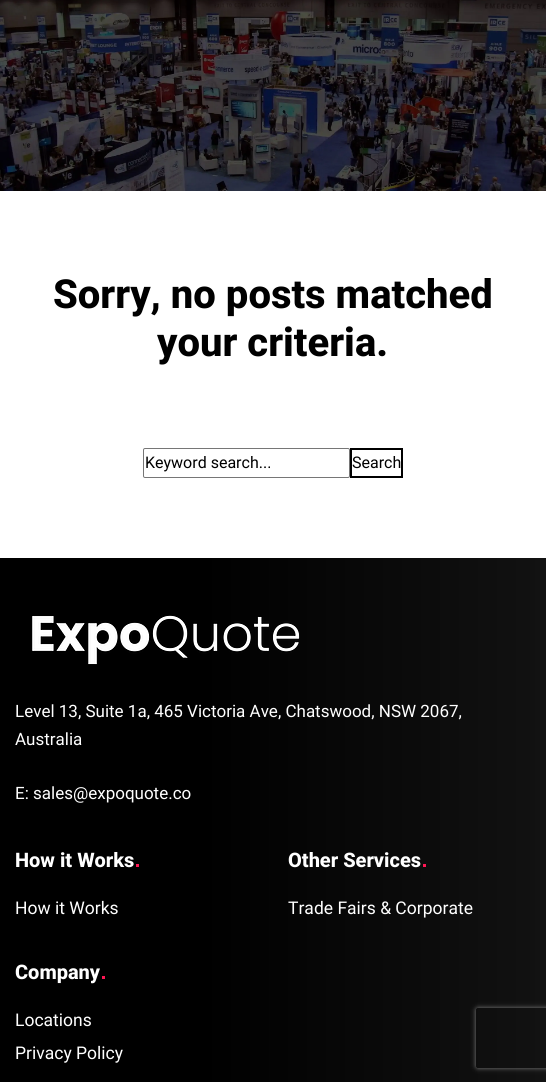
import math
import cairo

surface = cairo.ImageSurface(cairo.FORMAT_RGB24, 546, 1082)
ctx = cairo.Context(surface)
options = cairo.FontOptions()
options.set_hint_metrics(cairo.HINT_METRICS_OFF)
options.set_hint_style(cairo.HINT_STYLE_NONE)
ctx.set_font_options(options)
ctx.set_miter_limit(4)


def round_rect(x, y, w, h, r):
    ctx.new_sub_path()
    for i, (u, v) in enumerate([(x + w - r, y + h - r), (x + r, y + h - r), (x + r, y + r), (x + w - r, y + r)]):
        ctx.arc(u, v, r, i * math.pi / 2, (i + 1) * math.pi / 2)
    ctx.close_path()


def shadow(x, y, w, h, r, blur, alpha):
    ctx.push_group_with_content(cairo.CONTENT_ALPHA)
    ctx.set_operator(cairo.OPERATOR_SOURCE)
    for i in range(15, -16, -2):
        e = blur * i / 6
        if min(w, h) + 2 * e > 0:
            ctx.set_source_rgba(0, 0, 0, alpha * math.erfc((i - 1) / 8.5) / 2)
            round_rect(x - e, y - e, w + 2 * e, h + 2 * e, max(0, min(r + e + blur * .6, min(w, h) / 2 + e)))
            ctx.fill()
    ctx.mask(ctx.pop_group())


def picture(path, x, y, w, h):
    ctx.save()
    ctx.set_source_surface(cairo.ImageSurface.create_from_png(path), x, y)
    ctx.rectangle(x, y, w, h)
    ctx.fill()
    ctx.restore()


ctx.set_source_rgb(1, 1, 1)
ctx.paint()
picture("img1.png", 0, 0, 546, 191)
ctx.select_font_face("Roboto ExtraBold")
ctx.set_font_size(40)
ctx.set_source_rgb(0, 0, 0)
ctx.move_to(53, 308)
ctx.show_text("Sorry, no posts matched")
ctx.move_to(157, 356)
ctx.show_text("your criteria.")
round_rect(143.5, 448.5, 206, 29, 1.5)
ctx.set_source_rgb(0.463, 0.463, 0.463)
ctx.set_line_width(1)
ctx.stroke()
ctx.select_font_face("Roboto")
ctx.set_font_size(16)
ctx.set_source_rgb(0, 0, 0)
ctx.move_to(145, 468)
ctx.show_text("Keyword search...")
ctx.rectangle(351, 449, 51, 28)
ctx.set_line_width(2)
ctx.stroke()
ctx.move_to(352, 468)
ctx.show_text("Search")
gradient = cairo.LinearGradient(0, 863, 546, 863)
gradient.add_color_stop_rgba(0.37, 0, 0, 0, 1)
gradient.add_color_stop_rgba(1, 0.071, 0.071, 0.071, 1)
ctx.set_source(gradient)
ctx.rectangle(0, 558, 546, 524)
ctx.fill()
picture("img2.png", 32, 615, 268, 50)
ctx.set_font_size(17)
ctx.set_source_rgb(1, 1, 1)
ctx.move_to(15, 717)
ctx.show_text("Level 13, Suite 1a, 465 Victoria Ave, Chatswood, NSW 2067,")
ctx.move_to(15, 745)
ctx.show_text("Australia")
ctx.move_to(15, 799)
ctx.show_text("E: sales@expoquote.co")
ctx.select_font_face("Roboto ExtraBold")
ctx.set_font_size(20)
ctx.move_to(15, 867)
ctx.show_text("How it Works")
ctx.set_source_rgb(1, 0.086, 0.329)
ctx.rectangle(136, 864, 3, 3)
ctx.fill()
ctx.select_font_face("Roboto")
ctx.set_font_size(17.5)
ctx.set_source_rgb(1, 1, 1)
ctx.move_to(15, 914)
ctx.show_text("How it Works")
ctx.select_font_face("Roboto ExtraBold")
ctx.set_font_size(20)
ctx.move_to(288, 867)
ctx.show_text("Other Services")
ctx.set_source_rgb(1, 0.086, 0.329)
ctx.rectangle(423, 864, 3, 3)
ctx.fill()
ctx.select_font_face("Roboto")
ctx.set_font_size(17.5)
ctx.set_source_rgb(1, 1, 1)
ctx.move_to(288, 914)
ctx.show_text("Trade Fairs & Corporate")
ctx.select_font_face("Roboto ExtraBold")
ctx.set_font_size(20)
ctx.move_to(15, 979)
ctx.show_text("Company")
ctx.set_source_rgb(1, 0.086, 0.329)
ctx.rectangle(102, 976, 3, 3)
ctx.fill()
ctx.select_font_face("Roboto")
ctx.set_font_size(17.5)
ctx.set_source_rgb(1, 1, 1)
ctx.move_to(15, 1026)
ctx.show_text("Locations")
ctx.move_to(15, 1059)
ctx.show_text("Privacy Policy")
ctx.save()
ctx.set_fill_rule(cairo.FILL_RULE_EVEN_ODD)
ctx.new_path()
ctx.move_to(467, 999)
ctx.line_to(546, 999)
ctx.line_to(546, 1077)
ctx.line_to(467, 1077)
ctx.close_path()
ctx.move_to(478, 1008)
ctx.line_to(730, 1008)
ctx.curve_to(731, 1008, 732, 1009, 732, 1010)
ctx.line_to(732, 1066)
ctx.curve_to(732, 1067, 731, 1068, 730, 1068)
ctx.line_to(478, 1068)
ctx.curve_to(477, 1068, 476, 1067, 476, 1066)
ctx.line_to(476, 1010)
ctx.curve_to(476, 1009, 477, 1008, 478, 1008)
ctx.close_path()
ctx.clip()
ctx.set_source_rgb(0.502, 0.502, 0.502)
shadow(476, 1008, 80, 60, 2, 2.5, 1)
ctx.restore()
surface.write_to_png("page.png")
